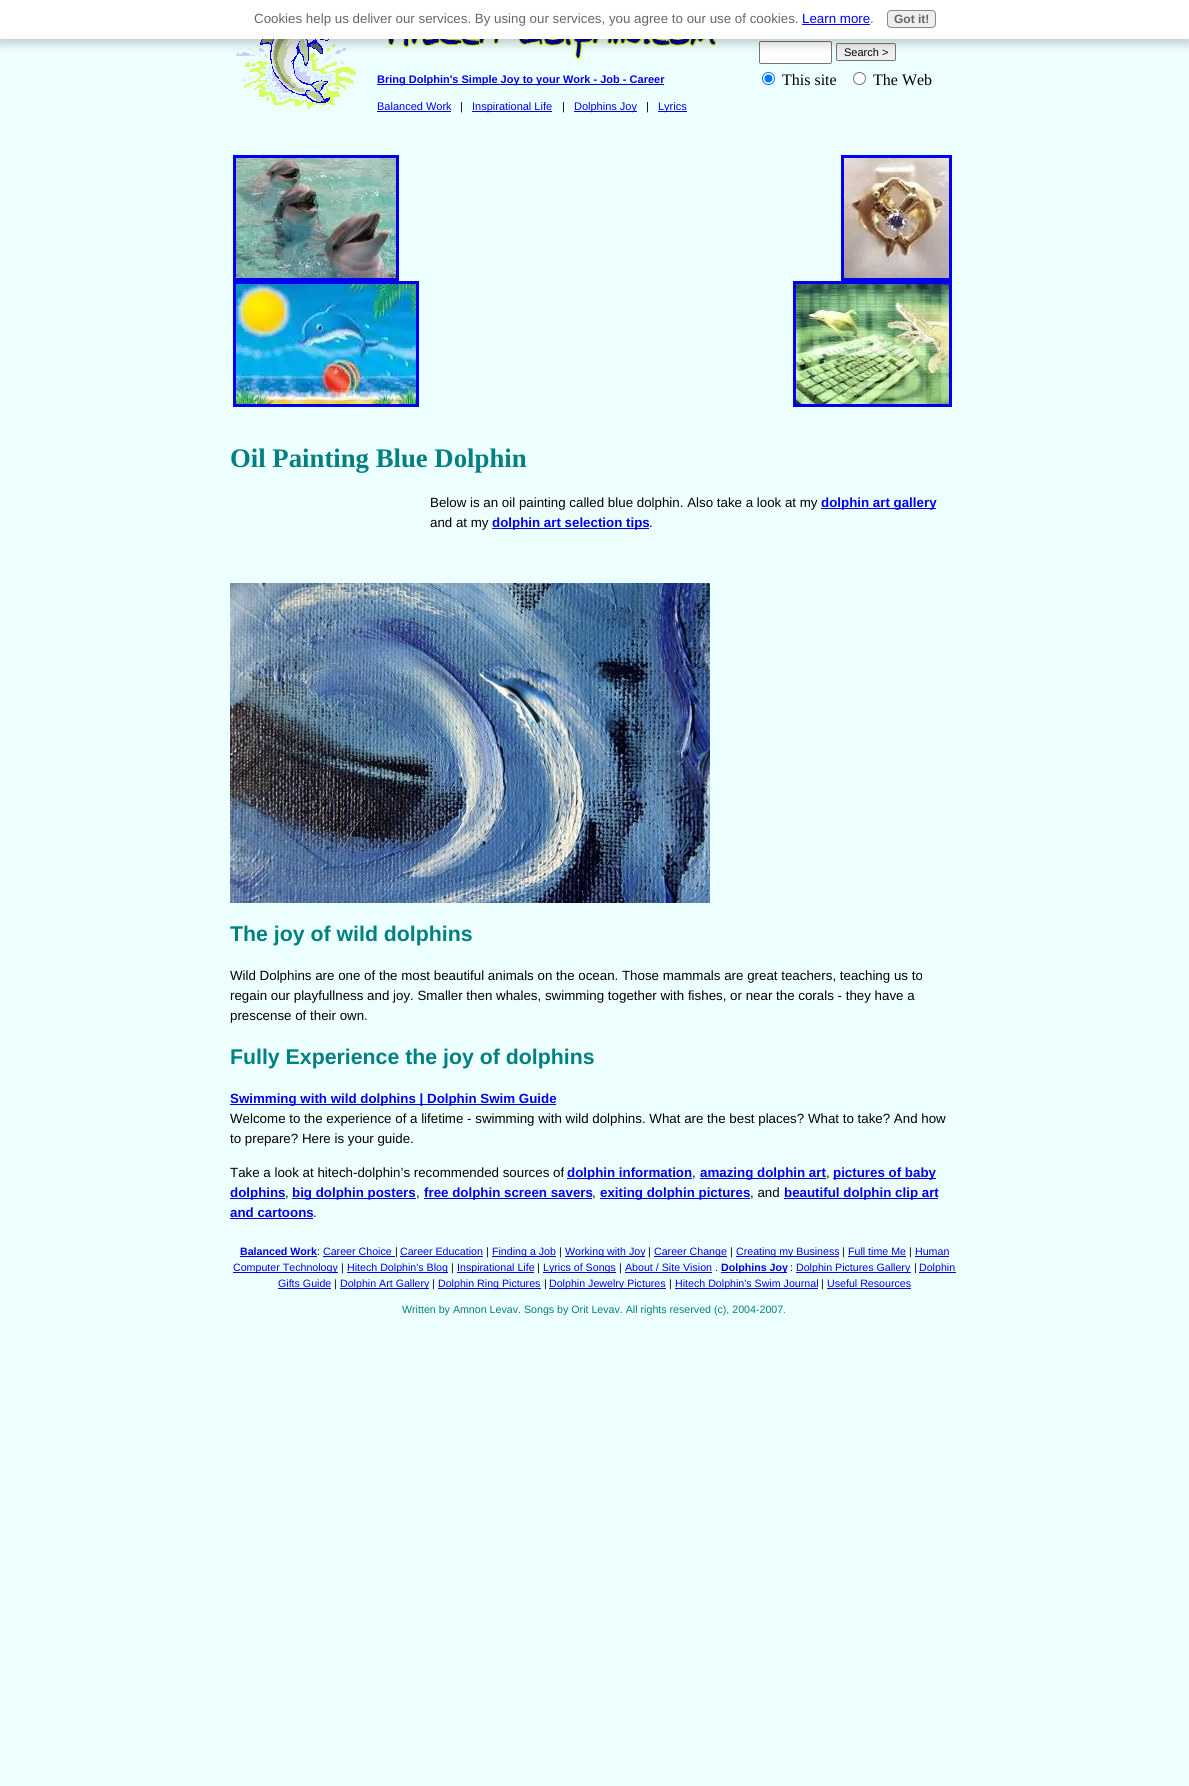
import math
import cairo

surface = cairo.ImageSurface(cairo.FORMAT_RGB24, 1189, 1786)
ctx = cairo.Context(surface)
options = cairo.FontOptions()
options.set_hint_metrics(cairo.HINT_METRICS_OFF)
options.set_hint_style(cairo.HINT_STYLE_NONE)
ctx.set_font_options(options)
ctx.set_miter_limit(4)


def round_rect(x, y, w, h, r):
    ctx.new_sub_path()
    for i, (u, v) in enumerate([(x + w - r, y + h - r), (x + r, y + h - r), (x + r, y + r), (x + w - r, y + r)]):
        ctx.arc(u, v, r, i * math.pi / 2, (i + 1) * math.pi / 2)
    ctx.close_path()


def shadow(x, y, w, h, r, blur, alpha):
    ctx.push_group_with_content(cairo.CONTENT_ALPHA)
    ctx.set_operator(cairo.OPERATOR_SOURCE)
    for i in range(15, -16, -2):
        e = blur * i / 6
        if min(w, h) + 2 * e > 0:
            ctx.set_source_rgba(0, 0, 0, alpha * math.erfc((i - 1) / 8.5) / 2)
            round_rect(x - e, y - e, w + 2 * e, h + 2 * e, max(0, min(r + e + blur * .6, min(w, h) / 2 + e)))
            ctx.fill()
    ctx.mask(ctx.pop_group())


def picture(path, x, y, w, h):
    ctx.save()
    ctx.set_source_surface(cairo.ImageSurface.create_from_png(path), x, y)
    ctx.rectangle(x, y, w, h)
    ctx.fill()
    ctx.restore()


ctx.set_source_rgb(0.933, 1, 1)
ctx.paint()
picture("img1.png", 236, 39, 120, 70)
ctx.set_source_rgb(1, 1, 1)
round_rect(759.5, 41.5, 72, 22, 1.5)
ctx.fill_preserve()
ctx.set_source_rgb(0.463, 0.463, 0.463)
ctx.set_line_width(1)
ctx.stroke()
ctx.set_source_rgb(0.937, 0.937, 0.937)
round_rect(836.5, 43.5, 59, 17, 1.5)
ctx.fill_preserve()
ctx.set_source_rgb(0.463, 0.463, 0.463)
ctx.stroke()
picture("img2.png", 388, 39, 328, 20)
ctx.set_source_rgb(0, 0, 0)
shadow(-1, 3, 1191, 41, 0, 5, 0.2)
ctx.set_source_rgb(1, 1, 1)
ctx.rectangle(0, 0, 1189, 39)
ctx.fill()
ctx.select_font_face("Liberation Sans")
ctx.set_font_size(13.33)
ctx.set_source_rgb(0.4, 0.4, 0.4)
ctx.move_to(254, 23)
ctx.show_text("Cookies help us deliver our services. By using our services, you agree to our use of cookies.")
ctx.set_source_rgb(0, 0, 1)
ctx.move_to(802, 23)
ctx.show_text("Learn more")
ctx.rectangle(802, 24, 68, 1)
ctx.fill()
ctx.set_source_rgb(0.4, 0.4, 0.4)
ctx.move_to(870, 23)
ctx.show_text(".")
ctx.set_source_rgb(0.933, 0.933, 0.933)
round_rect(887.5, 10.5, 48, 17, 3.5)
ctx.fill_preserve()
ctx.set_source_rgb(0.533, 0.533, 0.533)
ctx.stroke()
ctx.select_font_face("Liberation Sans", cairo.FONT_SLANT_NORMAL, cairo.FONT_WEIGHT_BOLD)
ctx.set_font_size(12)
ctx.set_source_rgb(0.4, 0.4, 0.4)
ctx.move_to(894, 23)
ctx.show_text("Got it!")
ctx.select_font_face("Liberation Sans")
ctx.set_font_size(11)
ctx.set_source_rgb(0, 0, 0)
ctx.move_to(844, 56)
ctx.show_text("Search >")
ctx.set_source_rgb(1, 1, 1)
ctx.new_path()
ctx.arc(768.5, 78.5, 6, 0, 2 * math.pi)
ctx.fill_preserve()
ctx.set_source_rgb(0, 0.459, 1)
ctx.stroke()
ctx.arc(768.5, 78.5, 4, 0, 2 * math.pi)
ctx.fill()
ctx.select_font_face("Liberation Serif")
ctx.set_font_size(16)
ctx.set_source_rgb(0, 0, 0)
ctx.move_to(782, 85)
ctx.show_text("This site")
ctx.set_source_rgb(1, 1, 1)
ctx.new_path()
ctx.arc(859.5, 78.5, 6, 0, 2 * math.pi)
ctx.fill_preserve()
ctx.set_source_rgb(0.463, 0.463, 0.463)
ctx.stroke()
ctx.set_source_rgb(0, 0, 0)
ctx.move_to(873, 85)
ctx.show_text("The Web")
ctx.set_source_rgb(0, 0, 0.933)
ctx.rectangle(377, 84, 287, 1)
ctx.fill()
ctx.select_font_face("Liberation Sans", cairo.FONT_SLANT_NORMAL, cairo.FONT_WEIGHT_BOLD)
ctx.set_font_size(11)
ctx.move_to(377, 83)
ctx.show_text("Bring Dolphin's Simple Joy to your Work - Job - Career")
ctx.select_font_face("Liberation Sans")
ctx.move_to(377, 110)
ctx.show_text("Balanced Work")
ctx.rectangle(377, 111, 74, 1)
ctx.fill()
ctx.set_source_rgb(0, 0, 0)
ctx.move_to(460, 110)
ctx.show_text("|")
ctx.set_source_rgb(0, 0, 0.933)
ctx.rectangle(472, 111, 80, 1)
ctx.fill()
ctx.move_to(472, 110)
ctx.show_text("Inspirational Life")
ctx.set_source_rgb(0, 0, 0)
ctx.move_to(562, 110)
ctx.show_text("|")
ctx.set_source_rgb(0, 0, 0.933)
ctx.rectangle(574, 111, 63, 1)
ctx.fill()
ctx.move_to(574, 110)
ctx.show_text("Dolphins Joy")
ctx.set_source_rgb(0, 0, 0)
ctx.move_to(646, 110)
ctx.show_text("|")
ctx.set_source_rgb(0, 0, 0.933)
ctx.rectangle(658, 111, 29, 1)
ctx.fill()
ctx.move_to(658, 110)
ctx.show_text("Lyrics")
ctx.rectangle(234.5, 156.5, 163, 123)
ctx.set_line_width(3)
ctx.stroke()
picture("img3.png", 236, 158, 160, 120)
ctx.rectangle(234.5, 282.5, 183, 123)
ctx.stroke()
picture("img4.png", 236, 284, 180, 120)
ctx.rectangle(842.5, 156.5, 108, 123)
ctx.stroke()
picture("img5.png", 844, 158, 105, 120)
ctx.rectangle(794.5, 282.5, 156, 123)
ctx.stroke()
picture("img6.png", 796, 284, 153, 120)
ctx.select_font_face("Liberation Serif", cairo.FONT_SLANT_NORMAL, cairo.FONT_WEIGHT_BOLD)
ctx.set_font_size(26.75)
ctx.set_source_rgb(0, 0.502, 0.502)
ctx.move_to(230, 467)
ctx.show_text("Oil Painting Blue Dolphin")
ctx.select_font_face("Liberation Sans")
ctx.set_font_size(13.33)
ctx.set_source_rgb(0, 0, 0)
ctx.move_to(430, 507)
ctx.show_text("Below is an oil painting called blue dolphin. Also take a look at my")
ctx.set_source_rgb(0, 0, 0.933)
ctx.rectangle(821, 508, 115, 1)
ctx.fill()
ctx.select_font_face("Liberation Sans", cairo.FONT_SLANT_NORMAL, cairo.FONT_WEIGHT_BOLD)
ctx.move_to(821, 507)
ctx.show_text("dolphin art gallery")
ctx.select_font_face("Liberation Sans")
ctx.set_source_rgb(0, 0, 0)
ctx.move_to(430, 527)
ctx.show_text("and at my")
ctx.set_source_rgb(0, 0, 0.933)
ctx.rectangle(492, 528, 157, 1)
ctx.fill()
ctx.select_font_face("Liberation Sans", cairo.FONT_SLANT_NORMAL, cairo.FONT_WEIGHT_BOLD)
ctx.move_to(492, 527)
ctx.show_text("dolphin art selection tips")
ctx.select_font_face("Liberation Sans")
ctx.set_source_rgb(0, 0, 0)
ctx.move_to(649, 527)
ctx.show_text(".")
picture("img7.png", 230, 583, 480, 320)
ctx.select_font_face("Liberation Sans", cairo.FONT_SLANT_NORMAL, cairo.FONT_WEIGHT_BOLD)
ctx.set_font_size(21.3)
ctx.set_source_rgb(0, 0.502, 0.502)
ctx.move_to(230, 941)
ctx.show_text("The joy of wild dolphins")
ctx.select_font_face("Liberation Sans")
ctx.set_font_size(13.33)
ctx.set_source_rgb(0, 0, 0)
ctx.move_to(230, 980)
ctx.show_text("Wild Dolphins are one of the most beautiful animals on the ocean. Those mammals are great teachers, teaching us to")
ctx.move_to(230, 1000)
ctx.show_text("regain our playfullness and joy. Smaller then whales, swimming together with fishes, or near the corals - they have a")
ctx.move_to(230, 1020)
ctx.show_text("prescense of their own.")
ctx.select_font_face("Liberation Sans", cairo.FONT_SLANT_NORMAL, cairo.FONT_WEIGHT_BOLD)
ctx.set_font_size(21.3)
ctx.set_source_rgb(0, 0.502, 0.502)
ctx.move_to(230, 1064)
ctx.show_text("Fully Experience the joy of dolphins")
ctx.set_source_rgb(0, 0, 0.933)
ctx.rectangle(230, 1104, 326, 1)
ctx.fill()
ctx.set_font_size(13.33)
ctx.move_to(230, 1103)
ctx.show_text("Swimming with wild dolphins | Dolphin Swim Guide")
ctx.select_font_face("Liberation Sans")
ctx.set_source_rgb(0, 0, 0)
ctx.move_to(230, 1123)
ctx.show_text("Welcome to the experience of a lifetime - swimming with wild dolphins. What are the best places? What to take? And how")
ctx.move_to(230, 1143)
ctx.show_text("to prepare? Here is your guide.")
ctx.move_to(230, 1177)
ctx.show_text("Take a look at hitech-dolphin’s recommended sources of")
ctx.set_source_rgb(0, 0, 0.933)
ctx.rectangle(567, 1178, 125, 1)
ctx.fill()
ctx.select_font_face("Liberation Sans", cairo.FONT_SLANT_NORMAL, cairo.FONT_WEIGHT_BOLD)
ctx.move_to(567, 1177)
ctx.show_text("dolphin information")
ctx.select_font_face("Liberation Sans")
ctx.set_source_rgb(0, 0, 0)
ctx.move_to(692, 1177)
ctx.show_text(",")
ctx.set_source_rgb(0, 0, 0.933)
ctx.rectangle(700, 1178, 126, 1)
ctx.fill()
ctx.select_font_face("Liberation Sans", cairo.FONT_SLANT_NORMAL, cairo.FONT_WEIGHT_BOLD)
ctx.move_to(700, 1177)
ctx.show_text("amazing dolphin art")
ctx.select_font_face("Liberation Sans")
ctx.set_source_rgb(0, 0, 0)
ctx.move_to(826, 1177)
ctx.show_text(",")
ctx.set_source_rgb(0, 0, 0.933)
ctx.rectangle(833, 1178, 103, 1)
ctx.fill()
ctx.select_font_face("Liberation Sans", cairo.FONT_SLANT_NORMAL, cairo.FONT_WEIGHT_BOLD)
ctx.move_to(833, 1177)
ctx.show_text("pictures of baby")
ctx.rectangle(230, 1198, 55, 1)
ctx.fill()
ctx.move_to(230, 1197)
ctx.show_text("dolphins")
ctx.select_font_face("Liberation Sans")
ctx.set_source_rgb(0, 0, 0)
ctx.move_to(285, 1197)
ctx.show_text(",")
ctx.set_source_rgb(0, 0, 0.933)
ctx.rectangle(292, 1198, 124, 1)
ctx.fill()
ctx.select_font_face("Liberation Sans", cairo.FONT_SLANT_NORMAL, cairo.FONT_WEIGHT_BOLD)
ctx.move_to(292, 1197)
ctx.show_text("big dolphin posters")
ctx.select_font_face("Liberation Sans")
ctx.set_source_rgb(0, 0, 0)
ctx.move_to(416, 1197)
ctx.show_text(",")
ctx.set_source_rgb(0, 0, 0.933)
ctx.rectangle(424, 1198, 168, 1)
ctx.fill()
ctx.select_font_face("Liberation Sans", cairo.FONT_SLANT_NORMAL, cairo.FONT_WEIGHT_BOLD)
ctx.move_to(424, 1197)
ctx.show_text("free dolphin screen savers")
ctx.select_font_face("Liberation Sans")
ctx.set_source_rgb(0, 0, 0)
ctx.move_to(592, 1197)
ctx.show_text(",")
ctx.set_source_rgb(0, 0, 0.933)
ctx.rectangle(600, 1198, 150, 1)
ctx.fill()
ctx.select_font_face("Liberation Sans", cairo.FONT_SLANT_NORMAL, cairo.FONT_WEIGHT_BOLD)
ctx.move_to(600, 1197)
ctx.show_text("exiting dolphin pictures")
ctx.select_font_face("Liberation Sans")
ctx.set_source_rgb(0, 0, 0)
ctx.move_to(750, 1197)
ctx.show_text(", and")
ctx.set_source_rgb(0, 0, 0.933)
ctx.rectangle(784, 1198, 154, 1)
ctx.fill()
ctx.select_font_face("Liberation Sans", cairo.FONT_SLANT_NORMAL, cairo.FONT_WEIGHT_BOLD)
ctx.move_to(784, 1197)
ctx.show_text("beautiful dolphin clip art")
ctx.move_to(230, 1217)
ctx.show_text("and cartoons")
ctx.rectangle(230, 1218, 83, 1)
ctx.fill()
ctx.select_font_face("Liberation Sans")
ctx.set_source_rgb(0, 0, 0)
ctx.move_to(313, 1217)
ctx.show_text(".")
ctx.select_font_face("Liberation Sans", cairo.FONT_SLANT_NORMAL, cairo.FONT_WEIGHT_BOLD)
ctx.set_font_size(10.65)
ctx.set_source_rgb(0, 0, 0.933)
ctx.move_to(240, 1255)
ctx.show_text("Balanced Work")
ctx.rectangle(240, 1256, 77, 1)
ctx.fill()
ctx.select_font_face("Liberation Sans")
ctx.set_source_rgb(0, 0, 0)
ctx.move_to(317, 1255)
ctx.show_text(":")
ctx.set_source_rgb(0, 0, 0.933)
ctx.move_to(323, 1255)
ctx.show_text("Career Choice")
ctx.rectangle(323, 1256, 72, 1)
ctx.fill()
ctx.set_source_rgb(0, 0, 0)
ctx.move_to(395, 1255)
ctx.show_text("|")
ctx.set_source_rgb(0, 0, 0.933)
ctx.move_to(400, 1255)
ctx.show_text("Career Education")
ctx.rectangle(400, 1256, 83, 1)
ctx.fill()
ctx.set_source_rgb(0, 0, 0)
ctx.move_to(486, 1255)
ctx.show_text("|")
ctx.set_source_rgb(0, 0, 0.933)
ctx.rectangle(492, 1256, 64, 1)
ctx.fill()
ctx.move_to(492, 1255)
ctx.show_text("Finding a Job")
ctx.set_source_rgb(0, 0, 0)
ctx.move_to(559, 1255)
ctx.show_text("|")
ctx.set_source_rgb(0, 0, 0.933)
ctx.rectangle(565, 1256, 80, 1)
ctx.fill()
ctx.move_to(565, 1255)
ctx.show_text("Working with Joy")
ctx.set_source_rgb(0, 0, 0)
ctx.move_to(648, 1255)
ctx.show_text("|")
ctx.set_source_rgb(0, 0, 0.933)
ctx.rectangle(654, 1256, 73, 1)
ctx.fill()
ctx.move_to(654, 1255)
ctx.show_text("Career Change")
ctx.set_source_rgb(0, 0, 0)
ctx.move_to(730, 1255)
ctx.show_text("|")
ctx.set_source_rgb(0, 0, 0.933)
ctx.rectangle(736, 1256, 103, 1)
ctx.fill()
ctx.move_to(736, 1255)
ctx.show_text("Creating my Business")
ctx.set_source_rgb(0, 0, 0)
ctx.move_to(842, 1255)
ctx.show_text("|")
ctx.set_source_rgb(0, 0, 0.933)
ctx.move_to(848, 1255)
ctx.show_text("Full time Me")
ctx.rectangle(848, 1256, 58, 1)
ctx.fill()
ctx.set_source_rgb(0, 0, 0)
ctx.move_to(909, 1255)
ctx.show_text("|")
ctx.set_source_rgb(0, 0, 0.933)
ctx.move_to(915, 1255)
ctx.show_text("Human")
ctx.rectangle(915, 1256, 34, 1)
ctx.fill()
ctx.rectangle(233, 1272, 105, 1)
ctx.fill()
ctx.move_to(233, 1271)
ctx.show_text("Computer Technology")
ctx.set_source_rgb(0, 0, 0)
ctx.move_to(341, 1271)
ctx.show_text("|")
ctx.set_source_rgb(0, 0, 0.933)
ctx.rectangle(347, 1272, 101, 1)
ctx.fill()
ctx.move_to(347, 1271)
ctx.show_text("Hitech Dolphin's Blog")
ctx.set_source_rgb(0, 0, 0)
ctx.move_to(451, 1271)
ctx.show_text("|")
ctx.set_source_rgb(0, 0, 0.933)
ctx.rectangle(457, 1272, 77, 1)
ctx.fill()
ctx.move_to(457, 1271)
ctx.show_text("Inspirational Life")
ctx.set_source_rgb(0, 0, 0)
ctx.move_to(537, 1271)
ctx.show_text("|")
ctx.set_source_rgb(0, 0, 0.933)
ctx.rectangle(543, 1272, 73, 1)
ctx.fill()
ctx.move_to(543, 1271)
ctx.show_text("Lyrics of Songs")
ctx.set_source_rgb(0, 0, 0)
ctx.move_to(619, 1271)
ctx.show_text("|")
ctx.set_source_rgb(0, 0, 0.933)
ctx.move_to(625, 1271)
ctx.show_text("About / Site Vision")
ctx.rectangle(625, 1272, 87, 1)
ctx.fill()
ctx.set_source_rgb(0, 0, 0)
ctx.move_to(715, 1271)
ctx.show_text(".")
ctx.set_source_rgb(0, 0, 0.933)
ctx.rectangle(721, 1272, 66, 1)
ctx.fill()
ctx.select_font_face("Liberation Sans", cairo.FONT_SLANT_NORMAL, cairo.FONT_WEIGHT_BOLD)
ctx.move_to(721, 1271)
ctx.show_text("Dolphins Joy")
ctx.select_font_face("Liberation Sans")
ctx.set_source_rgb(0, 0, 0)
ctx.move_to(790, 1271)
ctx.show_text(":")
ctx.set_source_rgb(0, 0, 0.933)
ctx.rectangle(796, 1272, 115, 1)
ctx.fill()
ctx.move_to(796, 1271)
ctx.show_text("Dolphin Pictures Gallery")
ctx.set_source_rgb(0, 0, 0)
ctx.move_to(914, 1271)
ctx.show_text("|")
ctx.set_source_rgb(0, 0, 0.933)
ctx.rectangle(919, 1272, 37, 1)
ctx.fill()
ctx.move_to(919, 1271)
ctx.show_text("Dolphin")
ctx.move_to(278, 1287)
ctx.show_text("Gifts Guide")
ctx.rectangle(278, 1288, 53, 1)
ctx.fill()
ctx.set_source_rgb(0, 0, 0)
ctx.move_to(334, 1287)
ctx.show_text("|")
ctx.set_source_rgb(0, 0, 0.933)
ctx.rectangle(340, 1288, 89, 1)
ctx.fill()
ctx.move_to(340, 1287)
ctx.show_text("Dolphin Art Gallery")
ctx.set_source_rgb(0, 0, 0)
ctx.move_to(432, 1287)
ctx.show_text("|")
ctx.set_source_rgb(0, 0, 0.933)
ctx.rectangle(438, 1288, 103, 1)
ctx.fill()
ctx.move_to(438, 1287)
ctx.show_text("Dolphin Ring Pictures")
ctx.set_source_rgb(0, 0, 0)
ctx.move_to(544, 1287)
ctx.show_text("|")
ctx.set_source_rgb(0, 0, 0.933)
ctx.rectangle(549, 1288, 117, 1)
ctx.fill()
ctx.move_to(549, 1287)
ctx.show_text("Dolphin Jewelry Pictures")
ctx.set_source_rgb(0, 0, 0)
ctx.move_to(669, 1287)
ctx.show_text("|")
ctx.set_source_rgb(0, 0, 0.933)
ctx.rectangle(675, 1288, 143, 1)
ctx.fill()
ctx.move_to(675, 1287)
ctx.show_text("Hitech Dolphin's Swim Journal")
ctx.set_source_rgb(0, 0, 0)
ctx.move_to(821, 1287)
ctx.show_text("|")
ctx.set_source_rgb(0, 0, 0.933)
ctx.move_to(827, 1287)
ctx.show_text("Useful Resources")
ctx.rectangle(827, 1288, 84, 1)
ctx.fill()
ctx.set_source_rgb(0, 0.502, 0.502)
ctx.move_to(402, 1313)
ctx.show_text("Written by Amnon Levav. Songs by Orit Levav. All rights reserved (c), 2004-2007.")
surface.write_to_png("page.png")
